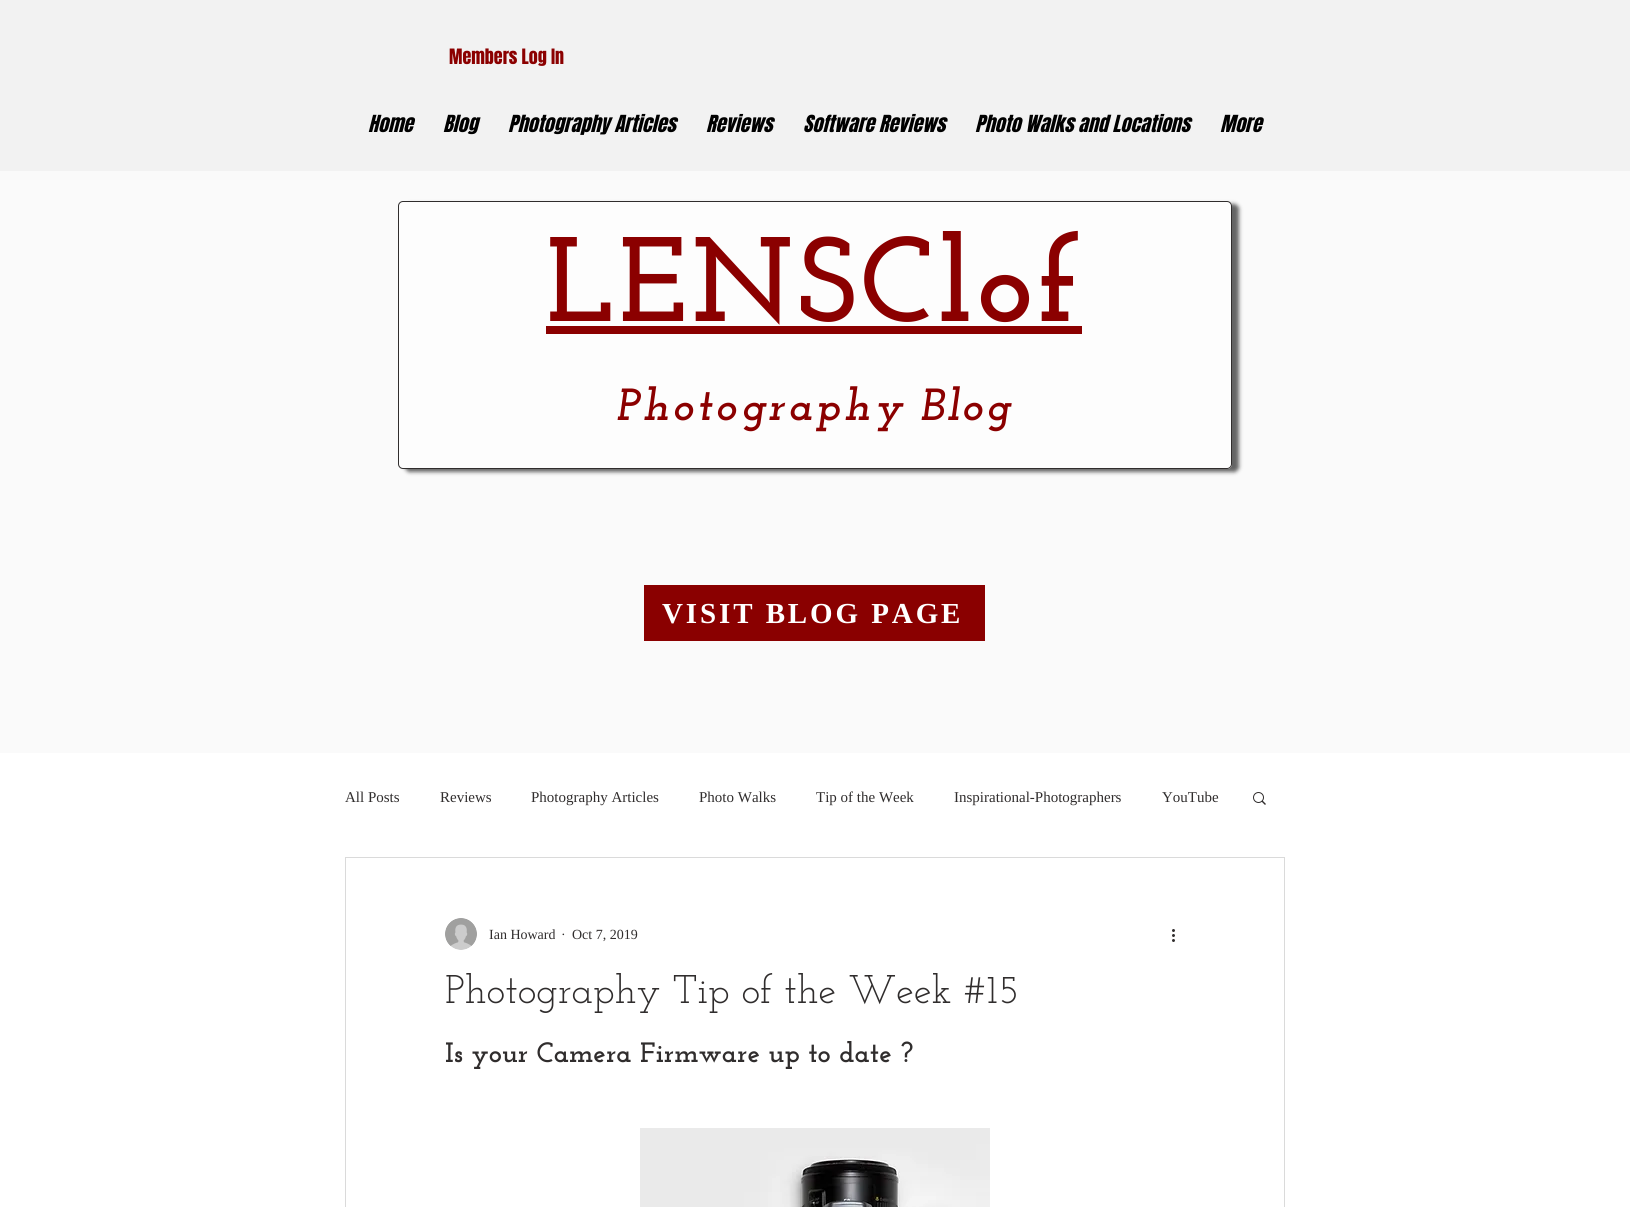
import math
import cairo

surface = cairo.ImageSurface(cairo.FORMAT_RGB24, 1630, 1207)
ctx = cairo.Context(surface)
options = cairo.FontOptions()
options.set_hint_metrics(cairo.HINT_METRICS_OFF)
options.set_hint_style(cairo.HINT_STYLE_NONE)
ctx.set_font_options(options)
ctx.set_miter_limit(4)


def spaced_text(x, y, s, letter, word):
    ctx.move_to(x, y)
    for ch in s:
        ctx.show_text(ch)
        ctx.rel_move_to(letter + word * (ch == ' '), 0)


def round_rect(x, y, w, h, r):
    ctx.new_sub_path()
    for i, (u, v) in enumerate([(x + w - r, y + h - r), (x + r, y + h - r), (x + r, y + r), (x + w - r, y + r)]):
        ctx.arc(u, v, r, i * math.pi / 2, (i + 1) * math.pi / 2)
    ctx.close_path()


def shadow(x, y, w, h, r, blur, alpha):
    ctx.push_group_with_content(cairo.CONTENT_ALPHA)
    ctx.set_operator(cairo.OPERATOR_SOURCE)
    for i in range(15, -16, -2):
        e = blur * i / 6
        if min(w, h) + 2 * e > 0:
            ctx.set_source_rgba(0, 0, 0, alpha * math.erfc((i - 1) / 8.5) / 2)
            round_rect(x - e, y - e, w + 2 * e, h + 2 * e, max(0, min(r + e + blur * .6, min(w, h) / 2 + e)))
            ctx.fill()
    ctx.mask(ctx.pop_group())


def picture(path, x, y, w, h):
    ctx.save()
    ctx.set_source_surface(cairo.ImageSurface.create_from_png(path), x, y)
    ctx.rectangle(x, y, w, h)
    ctx.fill()
    ctx.restore()


ctx.set_source_rgb(1, 1, 1)
ctx.paint()
ctx.set_source_rgb(0.949, 0.949, 0.949)
ctx.rectangle(0, 0, 1630, 171)
ctx.fill()
ctx.select_font_face("Anton")
ctx.set_font_size(18)
ctx.set_source_rgb(0.545, 0, 0)
ctx.move_to(449, 64)
ctx.show_text("Members Log In")
ctx.select_font_face("Anton", cairo.FONT_SLANT_ITALIC)
ctx.set_font_size(20)
ctx.set_source_rgb(0, 0, 0)
ctx.move_to(368, 132)
ctx.show_text("Home")
ctx.move_to(443, 132)
ctx.show_text("Blog")
ctx.move_to(508, 132)
ctx.show_text("Photography Articles")
ctx.move_to(706, 132)
ctx.show_text("Reviews")
ctx.move_to(803, 132)
ctx.show_text("Software Reviews")
ctx.move_to(975, 132)
ctx.show_text("Photo Walks and Locations")
ctx.move_to(1220, 132)
ctx.show_text("More")
ctx.set_source_rgb(0.98, 0.98, 0.98)
ctx.rectangle(0, 171, 1630, 582)
ctx.fill()
ctx.save()
ctx.set_fill_rule(cairo.FILL_RULE_EVEN_ODD)
ctx.new_path()
ctx.move_to(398, 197)
ctx.line_to(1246, 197)
ctx.line_to(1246, 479)
ctx.line_to(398, 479)
ctx.close_path()
ctx.move_to(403, 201)
ctx.line_to(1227, 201)
ctx.curve_to(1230, 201, 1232, 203, 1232, 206)
ctx.line_to(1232, 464)
ctx.curve_to(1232, 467, 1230, 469, 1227, 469)
ctx.line_to(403, 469)
ctx.curve_to(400, 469, 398, 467, 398, 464)
ctx.line_to(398, 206)
ctx.curve_to(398, 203, 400, 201, 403, 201)
ctx.close_path()
ctx.clip()
ctx.set_source_rgb(0, 0, 0)
shadow(405, 204, 834, 268, 5, 2, 0.6)
ctx.restore()
ctx.set_source_rgba(1, 1, 1, 0.59)
round_rect(398.5, 201.5, 833, 267, 4.5)
ctx.fill_preserve()
ctx.set_source_rgb(0.188, 0.176, 0.176)
ctx.set_line_width(1)
ctx.stroke()
ctx.select_font_face("Josefin Slab", cairo.FONT_SLANT_NORMAL, cairo.FONT_WEIGHT_BOLD)
ctx.set_font_size(120)
ctx.set_source_rgb(0.545, 0, 0)
spaced_text(546, 321, "LENSClof", 4.25, 0)
ctx.rectangle(546, 326, 536, 8)
ctx.fill()
ctx.select_font_face("Josefin Slab", cairo.FONT_SLANT_ITALIC, cairo.FONT_WEIGHT_BOLD)
ctx.set_font_size(45)
spaced_text(616, 420, "Photography", 3.4, 0)
spaced_text(920, 420, "Blog", 2, 0)
ctx.set_source_rgb(0.541, 0, 0)
ctx.rectangle(644, 585, 341, 56)
ctx.fill()
ctx.select_font_face("Liberation Serif", cairo.FONT_SLANT_NORMAL, cairo.FONT_WEIGHT_BOLD)
ctx.set_font_size(29)
ctx.set_source_rgb(1, 1, 1)
spaced_text(662, 623, "VISIT BLOG PAGE", 2.9, 0)
ctx.select_font_face("Liberation Serif")
ctx.set_font_size(15)
ctx.set_source_rgb(0.188, 0.176, 0.176)
ctx.move_to(345, 802)
ctx.show_text("All Posts")
ctx.move_to(440, 802)
ctx.show_text("Reviews")
ctx.move_to(531, 802)
ctx.show_text("Photography Articles")
ctx.move_to(699, 802)
ctx.show_text("Photo Walks")
ctx.move_to(816, 802)
ctx.show_text("Tip of the Week")
ctx.move_to(954, 802)
ctx.show_text("Inspirational-Photographers")
ctx.move_to(1162, 802)
ctx.show_text("YouTube")
picture("img1.png", 1253, 792, 13, 13)
ctx.rectangle(345.5, 857.5, 939, 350)
ctx.set_source_rgb(0.855, 0.855, 0.855)
ctx.stroke()
picture("img2.png", 445, 918, 32, 32)
ctx.set_font_size(14)
ctx.set_source_rgb(0.188, 0.176, 0.176)
ctx.move_to(489, 939)
ctx.show_text("Ian Howard")
ctx.move_to(561, 939)
ctx.show_text("·")
ctx.move_to(572, 939)
ctx.show_text("Oct 7, 2019")
picture("img3.png", 1172, 929, 3, 13)
ctx.select_font_face("Josefin Slab")
ctx.set_font_size(40)
ctx.move_to(445, 1003)
ctx.show_text("Photography Tip of the Week #15")
ctx.select_font_face("Josefin Slab", cairo.FONT_SLANT_NORMAL, cairo.FONT_WEIGHT_BOLD)
ctx.set_font_size(28)
ctx.move_to(445, 1062)
ctx.show_text("Is your Camera Firmware up to date ?")
picture("img4.png", 640, 1128, 350, 79)
surface.write_to_png("page.png")
